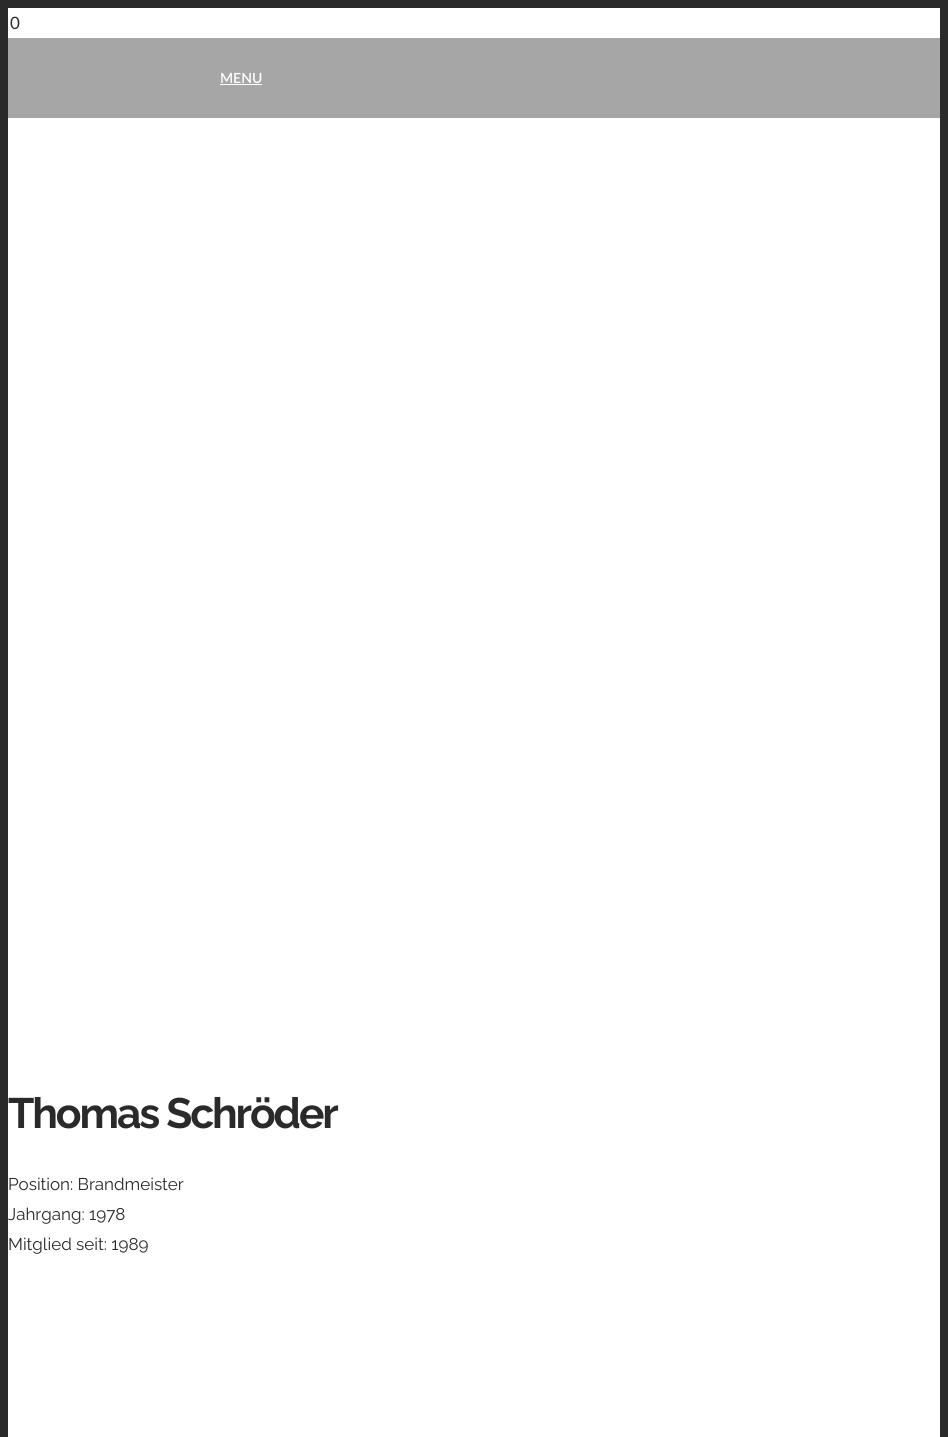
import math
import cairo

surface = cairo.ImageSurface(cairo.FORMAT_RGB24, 948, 1437)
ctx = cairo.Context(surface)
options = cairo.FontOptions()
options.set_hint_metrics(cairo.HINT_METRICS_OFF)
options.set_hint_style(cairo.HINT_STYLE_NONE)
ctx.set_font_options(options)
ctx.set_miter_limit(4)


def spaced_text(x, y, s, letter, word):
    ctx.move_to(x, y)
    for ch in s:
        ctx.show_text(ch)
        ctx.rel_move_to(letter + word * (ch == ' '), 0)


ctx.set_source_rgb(0.165, 0.165, 0.165)
ctx.paint()
ctx.set_source_rgb(1, 1, 1)
ctx.rectangle(8, 8, 932, 1429)
ctx.fill()
ctx.set_source_rgb(0.651, 0.651, 0.651)
ctx.rectangle(8, 38, 932, 80)
ctx.fill()
ctx.select_font_face("Lato")
ctx.set_font_size(17)
ctx.set_source_rgb(0.165, 0.165, 0.165)
ctx.move_to(10, 29)
ctx.show_text("0")
ctx.select_font_face("Lato SemiBold")
ctx.set_font_size(14)
ctx.set_source_rgb(1, 1, 1)
ctx.move_to(220, 83)
ctx.show_text("MENU")
ctx.rectangle(220, 84, 42, 1)
ctx.fill()
ctx.select_font_face("Raleway", cairo.FONT_SLANT_NORMAL, cairo.FONT_WEIGHT_BOLD)
ctx.set_font_size(42.5)
ctx.set_source_rgb(0.165, 0.165, 0.165)
spaced_text(8, 1128, "Thomas Schröder", -2.1, 0)
ctx.select_font_face("Raleway")
ctx.set_font_size(17)
ctx.move_to(8, 1190)
ctx.show_text("Position: Brandmeister")
ctx.move_to(8, 1220)
ctx.show_text("Jahrgang: 1978")
ctx.move_to(8, 1250)
ctx.show_text("Mitglied seit: 1989")
surface.write_to_png("page.png")
